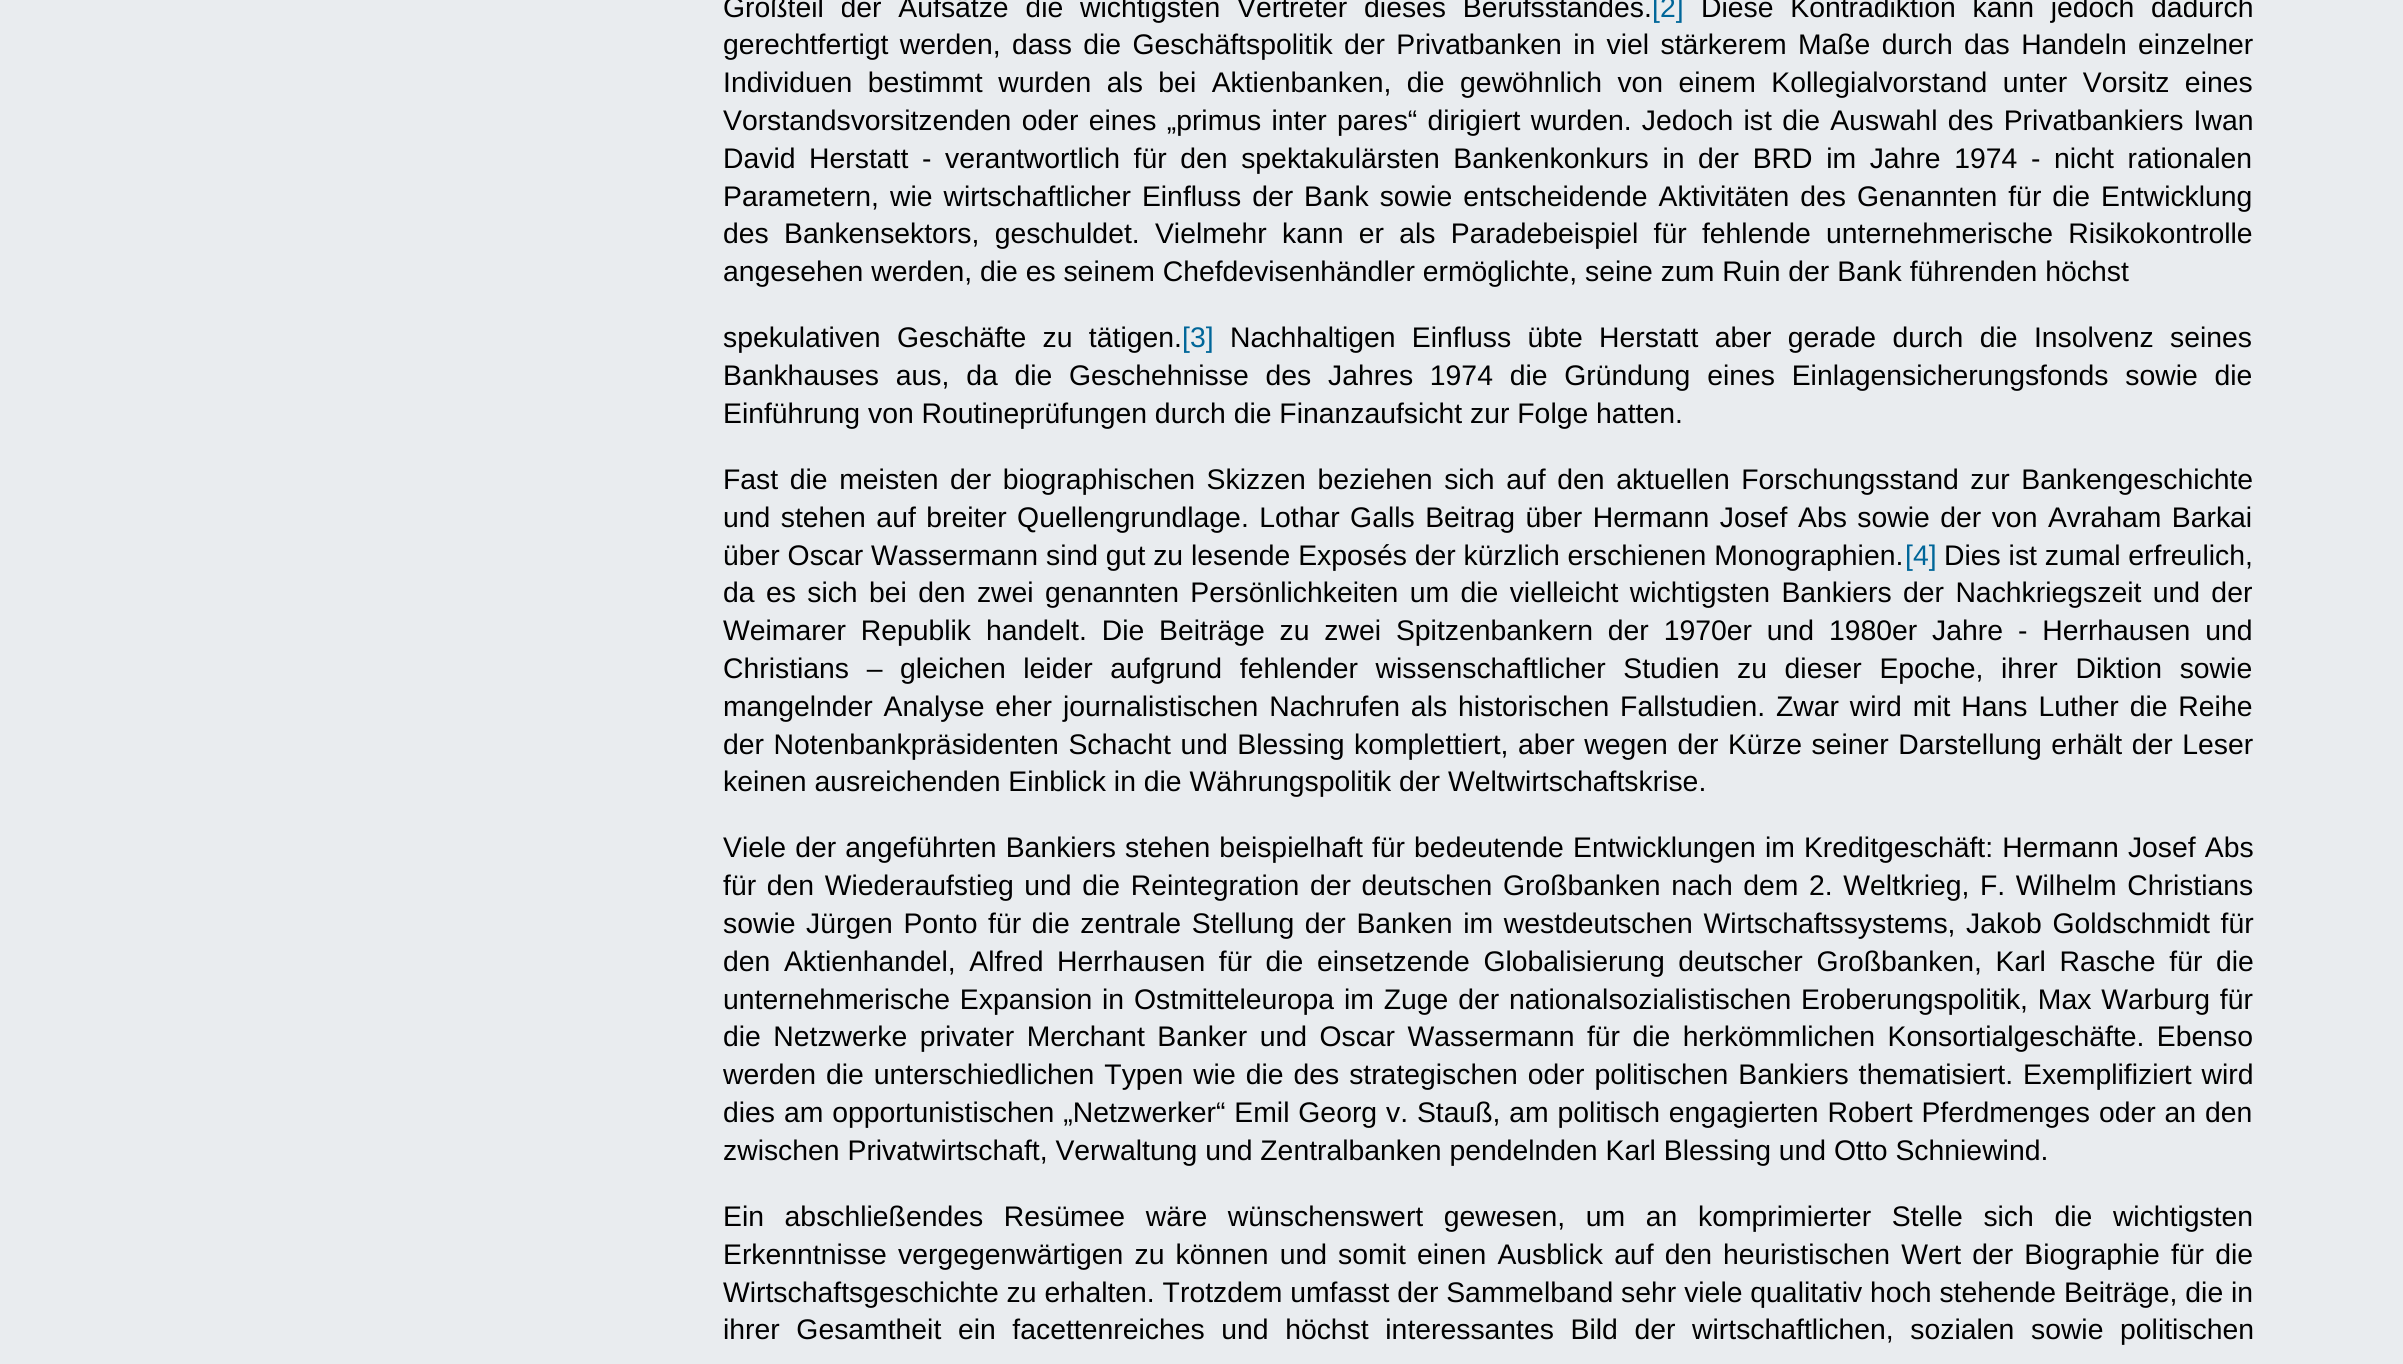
import math
import cairo

surface = cairo.ImageSurface(cairo.FORMAT_RGB24, 2403, 1364)
ctx = cairo.Context(surface)
options = cairo.FontOptions()
options.set_hint_metrics(cairo.HINT_METRICS_OFF)
options.set_hint_style(cairo.HINT_STYLE_NONE)
ctx.set_font_options(options)
ctx.set_miter_limit(4)


def spaced_text(x, y, s, letter, word):
    ctx.move_to(x, y)
    for ch in s:
        ctx.show_text(ch)
        ctx.rel_move_to(letter + word * (ch == ' '), 0)


ctx.set_source_rgb(0.914, 0.922, 0.937)
ctx.paint()
ctx.select_font_face("Liberation Sans")
ctx.set_font_size(28.35)
ctx.set_source_rgb(0, 0, 0)
spaced_text(723, 17, "Großteil der Aufsätze die wichtigsten Vertreter dieses Berufsstandes.", 0, 8.9)
ctx.set_source_rgb(0, 0.4, 0.6)
ctx.move_to(1652, 17)
ctx.show_text("[2]")
ctx.set_source_rgb(0, 0, 0)
spaced_text(1701, 17, "Diese Kontradiktion kann jedoch dadurch", 0, 8.9)
spaced_text(723, 54, "gerechtfertigt werden, dass die Geschäftspolitik der Privatbanken in viel stärkerem Maße durch das Handeln einzelner", 0, 3.5)
spaced_text(723, 92, "Individuen bestimmt wurden als bei Aktienbanken, die gewöhnlich von einem Kollegialvorstand unter Vorsitz eines", 0, 7.6)
spaced_text(723, 130, "Vorstandsvorsitzenden oder eines „primus inter pares“ dirigiert wurden. Jedoch ist die Auswahl des Privatbankiers Iwan", 0, 2.4)
spaced_text(723, 168, "David Herstatt - verantwortlich für den spektakulärsten Bankenkonkurs in der BRD im Jahre 1974 - nicht rationalen", 0, 5.75)
spaced_text(723, 206, "Parametern, wie wirtschaftlicher Einfluss der Bank sowie entscheidende Aktivitäten des Genannten für die Entwicklung", 0, 3.1)
spaced_text(723, 243, "des Bankensektors, geschuldet. Vielmehr kann er als Paradebeispiel für fehlende unternehmerische Risikokontrolle", 0, 7.4)
ctx.move_to(723, 281)
ctx.show_text("angesehen werden, die es seinem Chefdevisenhändler ermöglichte, seine zum Ruin der Bank führenden höchst")
spaced_text(723, 347, "spekulativen Geschäfte zu tätigen.", 0, 8.5)
ctx.set_source_rgb(0, 0.4, 0.6)
ctx.move_to(1182, 347)
ctx.show_text("[3]")
ctx.set_source_rgb(0, 0, 0)
spaced_text(1230, 347, "Nachhaltigen Einfluss übte Herstatt aber gerade durch die Insolvenz seines", 0, 8.5)
spaced_text(723, 385, "Bankhauses aus, da die Geschehnisse des Jahres 1974 die Gründung eines Einlagensicherungsfonds sowie die", 0, 8.9)
ctx.move_to(723, 423)
ctx.show_text("Einführung von Routineprüfungen durch die Finanzaufsicht zur Folge hatten.")
spaced_text(723, 489, "Fast die meisten der biographischen Skizzen beziehen sich auf den aktuellen Forschungsstand zur Bankengeschichte", 0, 3.75)
spaced_text(723, 527, "und stehen auf breiter Quellengrundlage. Lothar Galls Beitrag über Hermann Josef Abs sowie der von Avraham Barkai", 0, 2.6)
ctx.move_to(723, 565)
ctx.show_text("über Oscar Wassermann sind gut zu lesende Exposés der kürzlich erschienen Monographien.")
ctx.set_source_rgb(0, 0.4, 0.6)
ctx.move_to(1905, 565)
ctx.show_text("[4]")
ctx.set_source_rgb(0, 0, 0)
ctx.move_to(1944, 565)
ctx.show_text("Dies ist zumal erfreulich,")
spaced_text(723, 602, "da es sich bei den zwei genannten Persönlichkeiten um die vielleicht wichtigsten Bankiers der Nachkriegszeit und der", 0, 3.5)
spaced_text(723, 640, "Weimarer Republik handelt. Die Beiträge zu zwei Spitzenbankern der 1970er und 1980er Jahre - Herrhausen und", 0, 7)
spaced_text(723, 678, "Christians – gleichen leider aufgrund fehlender wissenschaftlicher Studien zu dieser Epoche, ihrer Diktion sowie", 0, 9.75)
spaced_text(723, 716, "mangelnder Analyse eher journalistischen Nachrufen als historischen Fallstudien. Zwar wird mit Hans Luther die Reihe", 0, 3)
spaced_text(723, 754, "der Notenbankpräsidenten Schacht und Blessing komplettiert, aber wegen der Kürze seiner Darstellung erhält der Leser", 0, 1.7)
ctx.move_to(723, 791)
ctx.show_text("keinen ausreichenden Einblick in die Währungspolitik der Weltwirtschaftskrise.")
spaced_text(723, 857, "Viele der angeführten Bankiers stehen beispielhaft für bedeutende Entwicklungen im Kreditgeschäft: Hermann Josef Abs", 0, 1.25)
spaced_text(723, 895, "für den Wiederaufstieg und die Reintegration der deutschen Großbanken nach dem 2. Weltkrieg, F. Wilhelm Christians", 0, 2.75)
spaced_text(723, 933, "sowie Jürgen Ponto für die zentrale Stellung der Banken im westdeutschen Wirtschaftssystems, Jakob Goldschmidt für", 0, 2.75)
spaced_text(723, 971, "den Aktienhandel, Alfred Herrhausen für die einsetzende Globalisierung deutscher Großbanken, Karl Rasche für die", 0, 5.75)
spaced_text(723, 1009, "unternehmerische Expansion in Ostmitteleuropa im Zuge der nationalsozialistischen Eroberungspolitik, Max Warburg für", 0, 2)
spaced_text(723, 1046, "die Netzwerke privater Merchant Banker und Oscar Wassermann für die herkömmlichen Konsortialgeschäfte. Ebenso", 0, 4.6)
spaced_text(723, 1084, "werden die unterschiedlichen Typen wie die des strategischen oder politischen Bankiers thematisiert. Exemplifiziert wird", 0, 2.1)
spaced_text(723, 1122, "dies am opportunistischen „Netzwerker“ Emil Georg v. Stauß, am politisch engagierten Robert Pferdmenges oder an den", 0, 1)
ctx.move_to(723, 1160)
ctx.show_text("zwischen Privatwirtschaft, Verwaltung und Zentralbanken pendelnden Karl Blessing und Otto Schniewind.")
spaced_text(723, 1226, "Ein abschließendes Resümee wäre wünschenswert gewesen, um an komprimierter Stelle sich die wichtigsten", 0, 12.75)
spaced_text(723, 1264, "Erkenntnisse vergegenwärtigen zu können und somit einen Ausblick auf den heuristischen Wert der Biographie für die", 0, 3.25)
ctx.move_to(723, 1302)
ctx.show_text("Wirtschaftsgeschichte zu erhalten. Trotzdem umfasst der Sammelband sehr viele qualitativ hoch stehende Beiträge, die in")
spaced_text(723, 1339, "ihrer Gesamtheit ein facettenreiches und höchst interessantes Bild der wirtschaftlichen, sozialen sowie politischen", 0, 8.75)
surface.write_to_png("page.png")
